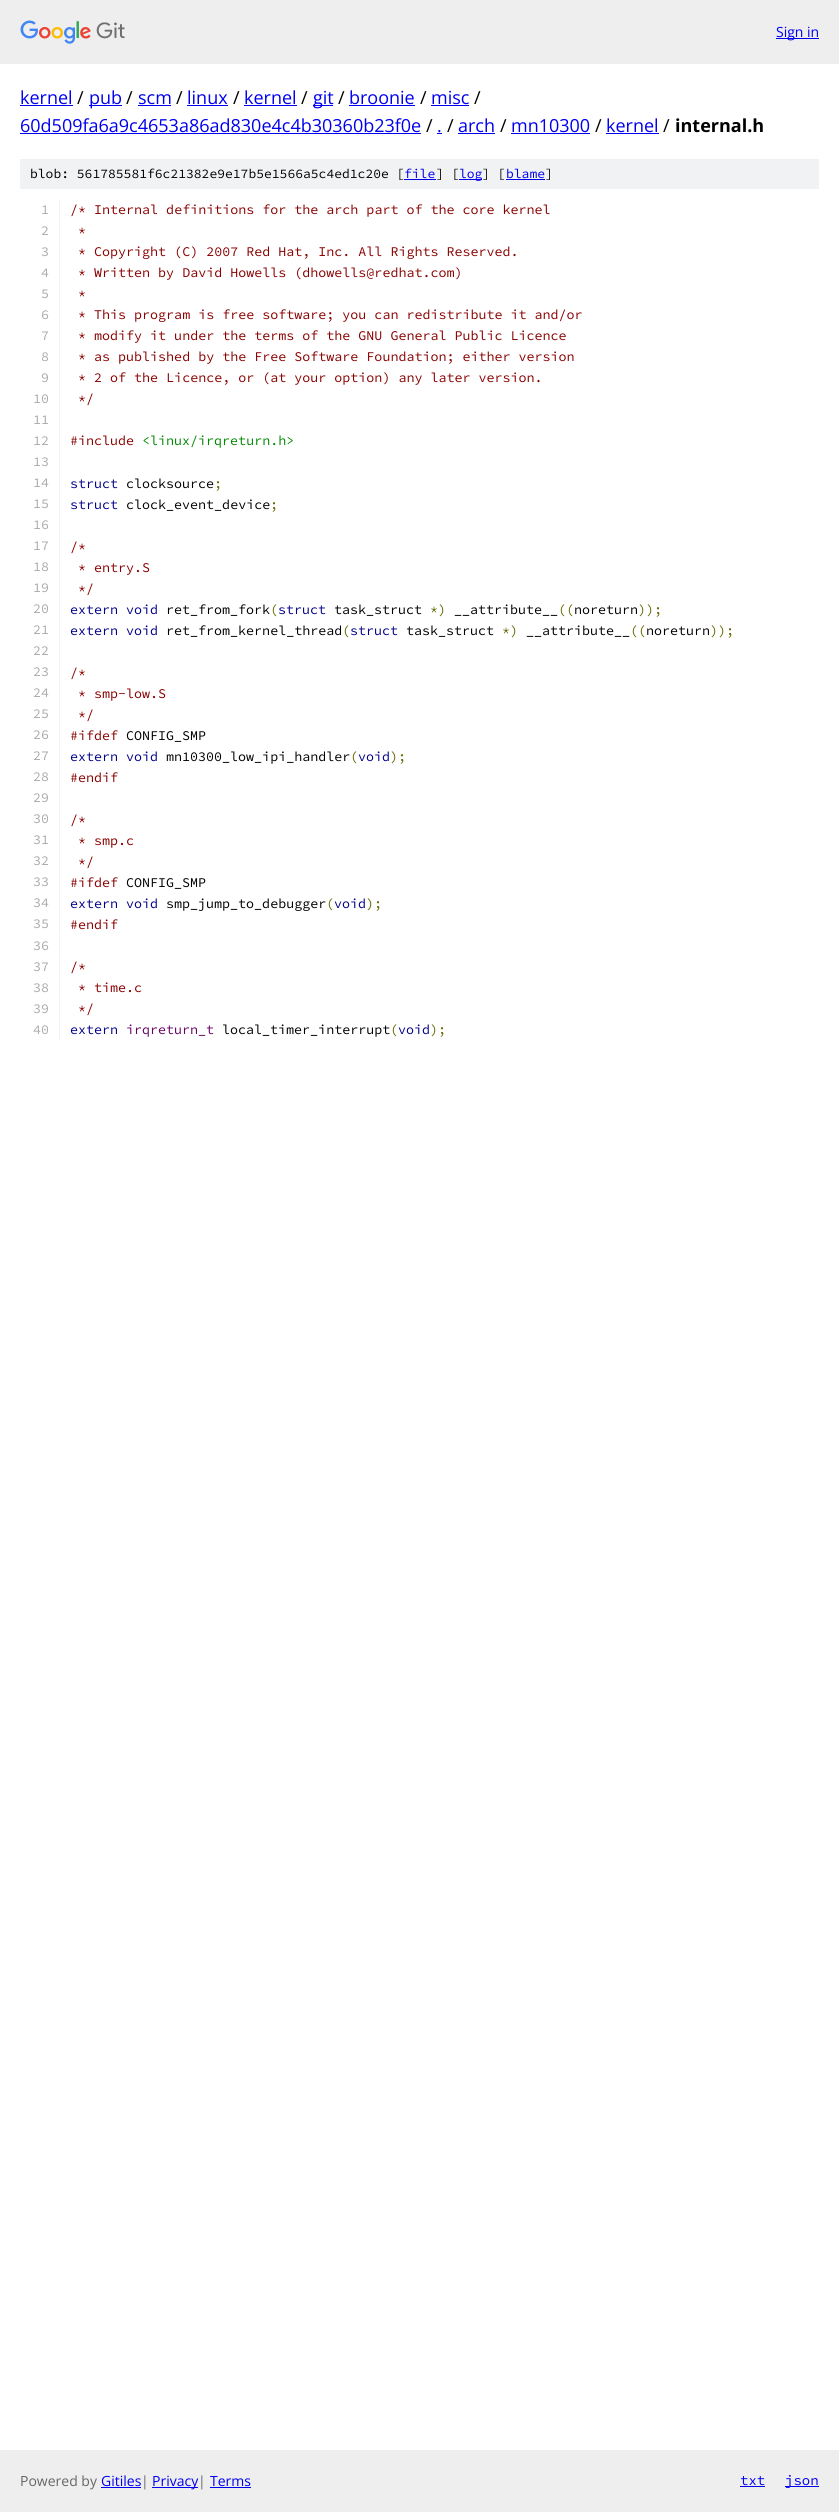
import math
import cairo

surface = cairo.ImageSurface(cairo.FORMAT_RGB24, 839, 2512)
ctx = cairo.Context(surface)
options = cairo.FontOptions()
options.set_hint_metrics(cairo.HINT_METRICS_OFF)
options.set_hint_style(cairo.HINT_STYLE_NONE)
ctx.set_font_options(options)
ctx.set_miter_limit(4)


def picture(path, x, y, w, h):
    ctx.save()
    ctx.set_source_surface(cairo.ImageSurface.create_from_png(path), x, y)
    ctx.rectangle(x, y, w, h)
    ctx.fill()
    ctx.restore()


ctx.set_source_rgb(1, 1, 1)
ctx.paint()
ctx.set_source_rgb(0.933, 0.933, 0.933)
ctx.rectangle(0, 0, 839, 64)
ctx.fill()
picture("img1.png", 20, 20, 105, 24)
ctx.set_source_rgb(0, 0, 0.933)
ctx.rectangle(776, 38, 43, 1)
ctx.fill()
ctx.select_font_face("Open Sans")
ctx.set_font_size(14)
ctx.move_to(776, 37)
ctx.show_text("Sign in")
ctx.set_font_size(18)
ctx.move_to(20, 104)
ctx.show_text("kernel")
ctx.rectangle(20, 105, 53, 1)
ctx.fill()
ctx.set_source_rgb(0, 0, 0)
ctx.move_to(77, 104)
ctx.show_text("/")
ctx.set_source_rgb(0, 0, 0.933)
ctx.rectangle(89, 105, 33, 1)
ctx.fill()
ctx.move_to(89, 104)
ctx.show_text("pub")
ctx.set_source_rgb(0, 0, 0)
ctx.move_to(126, 104)
ctx.show_text("/")
ctx.set_source_rgb(0, 0, 0.933)
ctx.move_to(138, 104)
ctx.show_text("scm")
ctx.rectangle(138, 105, 33, 1)
ctx.fill()
ctx.set_source_rgb(0, 0, 0)
ctx.move_to(176, 104)
ctx.show_text("/")
ctx.set_source_rgb(0, 0, 0.933)
ctx.move_to(187, 104)
ctx.show_text("linux")
ctx.rectangle(187, 105, 41, 1)
ctx.fill()
ctx.set_source_rgb(0, 0, 0)
ctx.move_to(233, 104)
ctx.show_text("/")
ctx.set_source_rgb(0, 0, 0.933)
ctx.move_to(244, 104)
ctx.show_text("kernel")
ctx.rectangle(244, 105, 53, 1)
ctx.fill()
ctx.set_source_rgb(0, 0, 0)
ctx.move_to(301, 104)
ctx.show_text("/")
ctx.set_source_rgb(0, 0, 0.933)
ctx.rectangle(313, 105, 20, 1)
ctx.fill()
ctx.move_to(313, 104)
ctx.show_text("git")
ctx.set_source_rgb(0, 0, 0)
ctx.move_to(338, 104)
ctx.show_text("/")
ctx.set_source_rgb(0, 0, 0.933)
ctx.move_to(349, 104)
ctx.show_text("broonie")
ctx.rectangle(349, 105, 66, 1)
ctx.fill()
ctx.set_source_rgb(0, 0, 0)
ctx.move_to(420, 104)
ctx.show_text("/")
ctx.set_source_rgb(0, 0, 0.933)
ctx.move_to(431, 104)
ctx.show_text("misc")
ctx.rectangle(431, 105, 38, 1)
ctx.fill()
ctx.set_source_rgb(0, 0, 0)
ctx.move_to(474, 104)
ctx.show_text("/")
ctx.set_source_rgb(0, 0, 0.933)
ctx.move_to(20, 132)
ctx.show_text("60d509fa6a9c4653a86ad830e4c4b30360b23f0e")
ctx.rectangle(20, 133, 401, 1)
ctx.fill()
ctx.set_source_rgb(0, 0, 0)
ctx.move_to(426, 132)
ctx.show_text("/")
ctx.set_source_rgb(0, 0, 0.933)
ctx.move_to(437, 132)
ctx.show_text(".")
ctx.rectangle(437, 133, 5, 1)
ctx.fill()
ctx.set_source_rgb(0, 0, 0)
ctx.move_to(447, 132)
ctx.show_text("/")
ctx.set_source_rgb(0, 0, 0.933)
ctx.move_to(458, 132)
ctx.show_text("arch")
ctx.rectangle(458, 133, 37, 1)
ctx.fill()
ctx.set_source_rgb(0, 0, 0)
ctx.move_to(500, 132)
ctx.show_text("/")
ctx.set_source_rgb(0, 0, 0.933)
ctx.move_to(511, 132)
ctx.show_text("mn10300")
ctx.rectangle(511, 133, 79, 1)
ctx.fill()
ctx.set_source_rgb(0, 0, 0)
ctx.move_to(595, 132)
ctx.show_text("/")
ctx.set_source_rgb(0, 0, 0.933)
ctx.move_to(606, 132)
ctx.show_text("kernel")
ctx.rectangle(606, 133, 53, 1)
ctx.fill()
ctx.set_source_rgb(0, 0, 0)
ctx.move_to(663, 132)
ctx.show_text("/")
ctx.select_font_face("Open Sans", cairo.FONT_SLANT_NORMAL, cairo.FONT_WEIGHT_BOLD)
ctx.move_to(675, 132)
ctx.show_text("internal.h")
ctx.set_source_rgb(0.945, 0.949, 0.953)
ctx.rectangle(20, 159, 799, 30)
ctx.fill()
ctx.select_font_face("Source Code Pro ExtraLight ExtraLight")
ctx.set_font_size(13)
ctx.set_source_rgb(0, 0, 0)
ctx.move_to(30, 178)
ctx.show_text("blob: 561785581f6c21382e9e17b5e1566a5c4ed1c20e [")
ctx.set_source_rgb(0, 0, 0.933)
ctx.move_to(404, 178)
ctx.show_text("file")
ctx.rectangle(404, 179, 32, 1)
ctx.fill()
ctx.set_source_rgb(0, 0, 0)
ctx.move_to(436, 178)
ctx.show_text("] [")
ctx.set_source_rgb(0, 0, 0.933)
ctx.rectangle(459, 179, 23, 1)
ctx.fill()
ctx.move_to(459, 178)
ctx.show_text("log")
ctx.set_source_rgb(0, 0, 0)
ctx.move_to(482, 178)
ctx.show_text("] [")
ctx.set_source_rgb(0, 0, 0.933)
ctx.move_to(506, 178)
ctx.show_text("blame")
ctx.rectangle(506, 179, 39, 1)
ctx.fill()
ctx.set_source_rgb(0, 0, 0)
ctx.move_to(545, 178)
ctx.show_text("]")
ctx.set_source_rgb(0.945, 0.949, 0.953)
ctx.rectangle(59, 200, 1, 20)
ctx.fill()
ctx.set_font_size(13.35)
ctx.set_source_rgb(0.667, 0.667, 0.667)
ctx.move_to(41, 214)
ctx.show_text("1")
ctx.set_source_rgb(0.533, 0, 0)
ctx.move_to(70, 214)
ctx.show_text("/* Internal definitions for the arch part of the core kernel")
ctx.set_source_rgb(0.945, 0.949, 0.953)
ctx.rectangle(59, 221, 1, 20)
ctx.fill()
ctx.set_source_rgb(0.667, 0.667, 0.667)
ctx.move_to(41, 235)
ctx.show_text("2")
ctx.set_source_rgb(0.533, 0, 0)
ctx.move_to(78, 235)
ctx.show_text("*")
ctx.set_source_rgb(0.945, 0.949, 0.953)
ctx.rectangle(59, 242, 1, 693)
ctx.fill()
ctx.set_source_rgb(0.667, 0.667, 0.667)
ctx.move_to(41, 256)
ctx.show_text("3")
ctx.set_source_rgb(0.533, 0, 0)
ctx.move_to(78, 256)
ctx.show_text("* Copyright (C) 2007 Red Hat, Inc. All Rights Reserved.")
ctx.set_source_rgb(0.667, 0.667, 0.667)
ctx.move_to(41, 277)
ctx.show_text("4")
ctx.set_source_rgb(0.533, 0, 0)
ctx.move_to(78, 277)
ctx.show_text("* Written by David Howells (dhowells@redhat.com)")
ctx.set_source_rgb(0.667, 0.667, 0.667)
ctx.move_to(41, 298)
ctx.show_text("5")
ctx.set_source_rgb(0.533, 0, 0)
ctx.move_to(78, 298)
ctx.show_text("*")
ctx.set_source_rgb(0.667, 0.667, 0.667)
ctx.move_to(41, 319)
ctx.show_text("6")
ctx.set_source_rgb(0.533, 0, 0)
ctx.move_to(78, 319)
ctx.show_text("* This program is free software; you can redistribute it and/or")
ctx.set_source_rgb(0.667, 0.667, 0.667)
ctx.move_to(41, 340)
ctx.show_text("7")
ctx.set_source_rgb(0.533, 0, 0)
ctx.move_to(78, 340)
ctx.show_text("* modify it under the terms of the GNU General Public Licence")
ctx.set_source_rgb(0.667, 0.667, 0.667)
ctx.move_to(41, 361)
ctx.show_text("8")
ctx.set_source_rgb(0.533, 0, 0)
ctx.move_to(78, 361)
ctx.show_text("* as published by the Free Software Foundation; either version")
ctx.set_source_rgb(0.667, 0.667, 0.667)
ctx.move_to(41, 382)
ctx.show_text("9")
ctx.set_source_rgb(0.533, 0, 0)
ctx.move_to(78, 382)
ctx.show_text("* 2 of the Licence, or (at your option) any later version.")
ctx.set_source_rgb(0.667, 0.667, 0.667)
ctx.move_to(33, 403)
ctx.show_text("10")
ctx.set_source_rgb(0.533, 0, 0)
ctx.move_to(78, 403)
ctx.show_text("*/")
ctx.set_source_rgb(0.667, 0.667, 0.667)
ctx.move_to(33, 424)
ctx.show_text("11")
ctx.move_to(33, 445)
ctx.show_text("12")
ctx.set_source_rgb(0.533, 0, 0)
ctx.move_to(70, 445)
ctx.show_text("#include")
ctx.set_source_rgb(0, 0.533, 0)
ctx.move_to(142, 445)
ctx.show_text("<linux/irqreturn.h>")
ctx.set_source_rgb(0.667, 0.667, 0.667)
ctx.move_to(33, 466)
ctx.show_text("13")
ctx.move_to(33, 487)
ctx.show_text("14")
ctx.set_source_rgb(0, 0, 0.533)
ctx.move_to(70, 488)
ctx.show_text("struct")
ctx.set_source_rgb(0, 0, 0)
ctx.move_to(126, 488)
ctx.show_text("clocksource")
ctx.set_source_rgb(0.4, 0.4, 0)
ctx.move_to(214, 488)
ctx.show_text(";")
ctx.set_source_rgb(0.667, 0.667, 0.667)
ctx.move_to(33, 508)
ctx.show_text("15")
ctx.set_source_rgb(0, 0, 0.533)
ctx.move_to(70, 509)
ctx.show_text("struct")
ctx.set_source_rgb(0, 0, 0)
ctx.move_to(126, 509)
ctx.show_text("clock_event_device")
ctx.set_source_rgb(0.4, 0.4, 0)
ctx.move_to(270, 509)
ctx.show_text(";")
ctx.set_source_rgb(0.667, 0.667, 0.667)
ctx.move_to(33, 529)
ctx.show_text("16")
ctx.move_to(33, 550)
ctx.show_text("17")
ctx.set_source_rgb(0.533, 0, 0)
ctx.move_to(70, 551)
ctx.show_text("/*")
ctx.set_source_rgb(0.667, 0.667, 0.667)
ctx.move_to(33, 571)
ctx.show_text("18")
ctx.set_source_rgb(0.533, 0, 0)
ctx.move_to(78, 572)
ctx.show_text("* entry.S")
ctx.set_source_rgb(0.667, 0.667, 0.667)
ctx.move_to(33, 592)
ctx.show_text("19")
ctx.set_source_rgb(0.533, 0, 0)
ctx.move_to(78, 593)
ctx.show_text("*/")
ctx.set_source_rgb(0.667, 0.667, 0.667)
ctx.move_to(33, 613)
ctx.show_text("20")
ctx.set_source_rgb(0, 0, 0.533)
ctx.move_to(70, 614)
ctx.show_text("extern void")
ctx.set_source_rgb(0, 0, 0)
ctx.move_to(166, 614)
ctx.show_text("ret_from_fork")
ctx.set_source_rgb(0.4, 0.4, 0)
ctx.move_to(270, 614)
ctx.show_text("(")
ctx.set_source_rgb(0, 0, 0.533)
ctx.move_to(278, 614)
ctx.show_text("struct")
ctx.set_source_rgb(0, 0, 0)
ctx.move_to(334, 614)
ctx.show_text("task_struct")
ctx.set_source_rgb(0.4, 0.4, 0)
ctx.move_to(430, 614)
ctx.show_text("*)")
ctx.set_source_rgb(0, 0, 0)
ctx.move_to(454, 614)
ctx.show_text("__attribute__")
ctx.set_source_rgb(0.4, 0.4, 0)
ctx.move_to(558, 614)
ctx.show_text("((")
ctx.set_source_rgb(0, 0, 0)
ctx.move_to(574, 614)
ctx.show_text("noreturn")
ctx.set_source_rgb(0.4, 0.4, 0)
ctx.move_to(638, 614)
ctx.show_text("));")
ctx.set_source_rgb(0.667, 0.667, 0.667)
ctx.move_to(33, 634)
ctx.show_text("21")
ctx.set_source_rgb(0, 0, 0.533)
ctx.move_to(70, 635)
ctx.show_text("extern void")
ctx.set_source_rgb(0, 0, 0)
ctx.move_to(166, 635)
ctx.show_text("ret_from_kernel_thread")
ctx.set_source_rgb(0.4, 0.4, 0)
ctx.move_to(342, 635)
ctx.show_text("(")
ctx.set_source_rgb(0, 0, 0.533)
ctx.move_to(350, 635)
ctx.show_text("struct")
ctx.set_source_rgb(0, 0, 0)
ctx.move_to(406, 635)
ctx.show_text("task_struct")
ctx.set_source_rgb(0.4, 0.4, 0)
ctx.move_to(502, 635)
ctx.show_text("*)")
ctx.set_source_rgb(0, 0, 0)
ctx.move_to(526, 635)
ctx.show_text("__attribute__")
ctx.set_source_rgb(0.4, 0.4, 0)
ctx.move_to(630, 635)
ctx.show_text("((")
ctx.set_source_rgb(0, 0, 0)
ctx.move_to(646, 635)
ctx.show_text("noreturn")
ctx.set_source_rgb(0.4, 0.4, 0)
ctx.move_to(710, 635)
ctx.show_text("));")
ctx.set_source_rgb(0.667, 0.667, 0.667)
ctx.move_to(33, 655)
ctx.show_text("22")
ctx.move_to(33, 676)
ctx.show_text("23")
ctx.set_source_rgb(0.533, 0, 0)
ctx.move_to(70, 677)
ctx.show_text("/*")
ctx.set_source_rgb(0.667, 0.667, 0.667)
ctx.move_to(33, 697)
ctx.show_text("24")
ctx.set_source_rgb(0.533, 0, 0)
ctx.move_to(78, 698)
ctx.show_text("* smp-low.S")
ctx.set_source_rgb(0.667, 0.667, 0.667)
ctx.move_to(33, 718)
ctx.show_text("25")
ctx.set_source_rgb(0.533, 0, 0)
ctx.move_to(78, 719)
ctx.show_text("*/")
ctx.set_source_rgb(0.667, 0.667, 0.667)
ctx.move_to(33, 739)
ctx.show_text("26")
ctx.set_source_rgb(0.533, 0, 0)
ctx.move_to(70, 740)
ctx.show_text("#ifdef")
ctx.set_source_rgb(0, 0, 0)
ctx.move_to(126, 740)
ctx.show_text("CONFIG_SMP")
ctx.set_source_rgb(0.667, 0.667, 0.667)
ctx.move_to(33, 760)
ctx.show_text("27")
ctx.set_source_rgb(0, 0, 0.533)
ctx.move_to(70, 761)
ctx.show_text("extern void")
ctx.set_source_rgb(0, 0, 0)
ctx.move_to(166, 761)
ctx.show_text("mn10300_low_ipi_handler")
ctx.set_source_rgb(0.4, 0.4, 0)
ctx.move_to(350, 761)
ctx.show_text("(")
ctx.set_source_rgb(0, 0, 0.533)
ctx.move_to(358, 761)
ctx.show_text("void")
ctx.set_source_rgb(0.4, 0.4, 0)
ctx.move_to(390, 761)
ctx.show_text(");")
ctx.set_source_rgb(0.667, 0.667, 0.667)
ctx.move_to(33, 781)
ctx.show_text("28")
ctx.set_source_rgb(0.533, 0, 0)
ctx.move_to(70, 782)
ctx.show_text("#endif")
ctx.set_source_rgb(0.667, 0.667, 0.667)
ctx.move_to(33, 802)
ctx.show_text("29")
ctx.move_to(33, 823)
ctx.show_text("30")
ctx.set_source_rgb(0.533, 0, 0)
ctx.move_to(70, 824)
ctx.show_text("/*")
ctx.set_source_rgb(0.667, 0.667, 0.667)
ctx.move_to(33, 844)
ctx.show_text("31")
ctx.set_source_rgb(0.533, 0, 0)
ctx.move_to(78, 845)
ctx.show_text("* smp.c")
ctx.set_source_rgb(0.667, 0.667, 0.667)
ctx.move_to(33, 865)
ctx.show_text("32")
ctx.set_source_rgb(0.533, 0, 0)
ctx.move_to(78, 866)
ctx.show_text("*/")
ctx.set_source_rgb(0.667, 0.667, 0.667)
ctx.move_to(33, 886)
ctx.show_text("33")
ctx.set_source_rgb(0.533, 0, 0)
ctx.move_to(70, 887)
ctx.show_text("#ifdef")
ctx.set_source_rgb(0, 0, 0)
ctx.move_to(126, 887)
ctx.show_text("CONFIG_SMP")
ctx.set_source_rgb(0.667, 0.667, 0.667)
ctx.move_to(33, 907)
ctx.show_text("34")
ctx.set_source_rgb(0, 0, 0.533)
ctx.move_to(70, 908)
ctx.show_text("extern void")
ctx.set_source_rgb(0, 0, 0)
ctx.move_to(166, 908)
ctx.show_text("smp_jump_to_debugger")
ctx.set_source_rgb(0.4, 0.4, 0)
ctx.move_to(326, 908)
ctx.show_text("(")
ctx.set_source_rgb(0, 0, 0.533)
ctx.move_to(334, 908)
ctx.show_text("void")
ctx.set_source_rgb(0.4, 0.4, 0)
ctx.move_to(366, 908)
ctx.show_text(");")
ctx.set_source_rgb(0.667, 0.667, 0.667)
ctx.move_to(33, 928)
ctx.show_text("35")
ctx.set_source_rgb(0.533, 0, 0)
ctx.move_to(70, 929)
ctx.show_text("#endif")
ctx.set_source_rgb(0.945, 0.949, 0.953)
ctx.rectangle(59, 936, 1, 20)
ctx.fill()
ctx.set_source_rgb(0.667, 0.667, 0.667)
ctx.move_to(33, 950)
ctx.show_text("36")
ctx.set_source_rgb(0.945, 0.949, 0.953)
ctx.rectangle(59, 957, 1, 20)
ctx.fill()
ctx.set_source_rgb(0.667, 0.667, 0.667)
ctx.move_to(33, 971)
ctx.show_text("37")
ctx.set_source_rgb(0.533, 0, 0)
ctx.move_to(70, 971)
ctx.show_text("/*")
ctx.set_source_rgb(0.945, 0.949, 0.953)
ctx.rectangle(59, 978, 1, 20)
ctx.fill()
ctx.set_source_rgb(0.667, 0.667, 0.667)
ctx.move_to(33, 992)
ctx.show_text("38")
ctx.set_source_rgb(0.533, 0, 0)
ctx.move_to(78, 992)
ctx.show_text("* time.c")
ctx.set_source_rgb(0.945, 0.949, 0.953)
ctx.rectangle(59, 999, 1, 20)
ctx.fill()
ctx.set_source_rgb(0.667, 0.667, 0.667)
ctx.move_to(33, 1013)
ctx.show_text("39")
ctx.set_source_rgb(0.533, 0, 0)
ctx.move_to(78, 1013)
ctx.show_text("*/")
ctx.set_source_rgb(0.945, 0.949, 0.953)
ctx.rectangle(59, 1020, 1, 20)
ctx.fill()
ctx.set_source_rgb(0.667, 0.667, 0.667)
ctx.move_to(33, 1034)
ctx.show_text("40")
ctx.set_source_rgb(0, 0, 0.533)
ctx.move_to(70, 1034)
ctx.show_text("extern")
ctx.set_source_rgb(0.4, 0, 0.4)
ctx.move_to(126, 1034)
ctx.show_text("irqreturn_t")
ctx.set_source_rgb(0, 0, 0)
ctx.move_to(222, 1034)
ctx.show_text("local_timer_interrupt")
ctx.set_source_rgb(0.4, 0.4, 0)
ctx.move_to(390, 1034)
ctx.show_text("(")
ctx.set_source_rgb(0, 0, 0.533)
ctx.move_to(398, 1034)
ctx.show_text("void")
ctx.set_source_rgb(0.4, 0.4, 0)
ctx.move_to(430, 1034)
ctx.show_text(");")
ctx.set_source_rgb(0.933, 0.933, 0.933)
ctx.rectangle(0, 2450, 839, 62)
ctx.fill()
ctx.select_font_face("Open Sans")
ctx.set_font_size(14)
ctx.set_source_rgb(0.4, 0.4, 0.4)
ctx.move_to(20, 2486)
ctx.show_text("Powered by")
ctx.set_source_rgb(0, 0, 0.933)
ctx.move_to(101, 2486)
ctx.show_text("Gitiles")
ctx.rectangle(101, 2487, 40, 1)
ctx.fill()
ctx.set_source_rgb(0.4, 0.4, 0.4)
ctx.move_to(141, 2486)
ctx.show_text("|")
ctx.set_source_rgb(0, 0, 0.933)
ctx.rectangle(152, 2487, 46, 1)
ctx.fill()
ctx.move_to(152, 2486)
ctx.show_text("Privacy")
ctx.set_source_rgb(0.4, 0.4, 0.4)
ctx.move_to(198, 2486)
ctx.show_text("|")
ctx.set_source_rgb(0, 0, 0.933)
ctx.move_to(210, 2486)
ctx.show_text("Terms")
ctx.rectangle(210, 2487, 41, 1)
ctx.fill()
ctx.select_font_face("Source Code Pro ExtraLight ExtraLight")
ctx.move_to(740, 2485)
ctx.show_text("txt")
ctx.rectangle(740, 2486, 25, 1)
ctx.fill()
ctx.rectangle(785, 2486, 34, 1)
ctx.fill()
ctx.move_to(785, 2485)
ctx.show_text("json")
surface.write_to_png("page.png")
